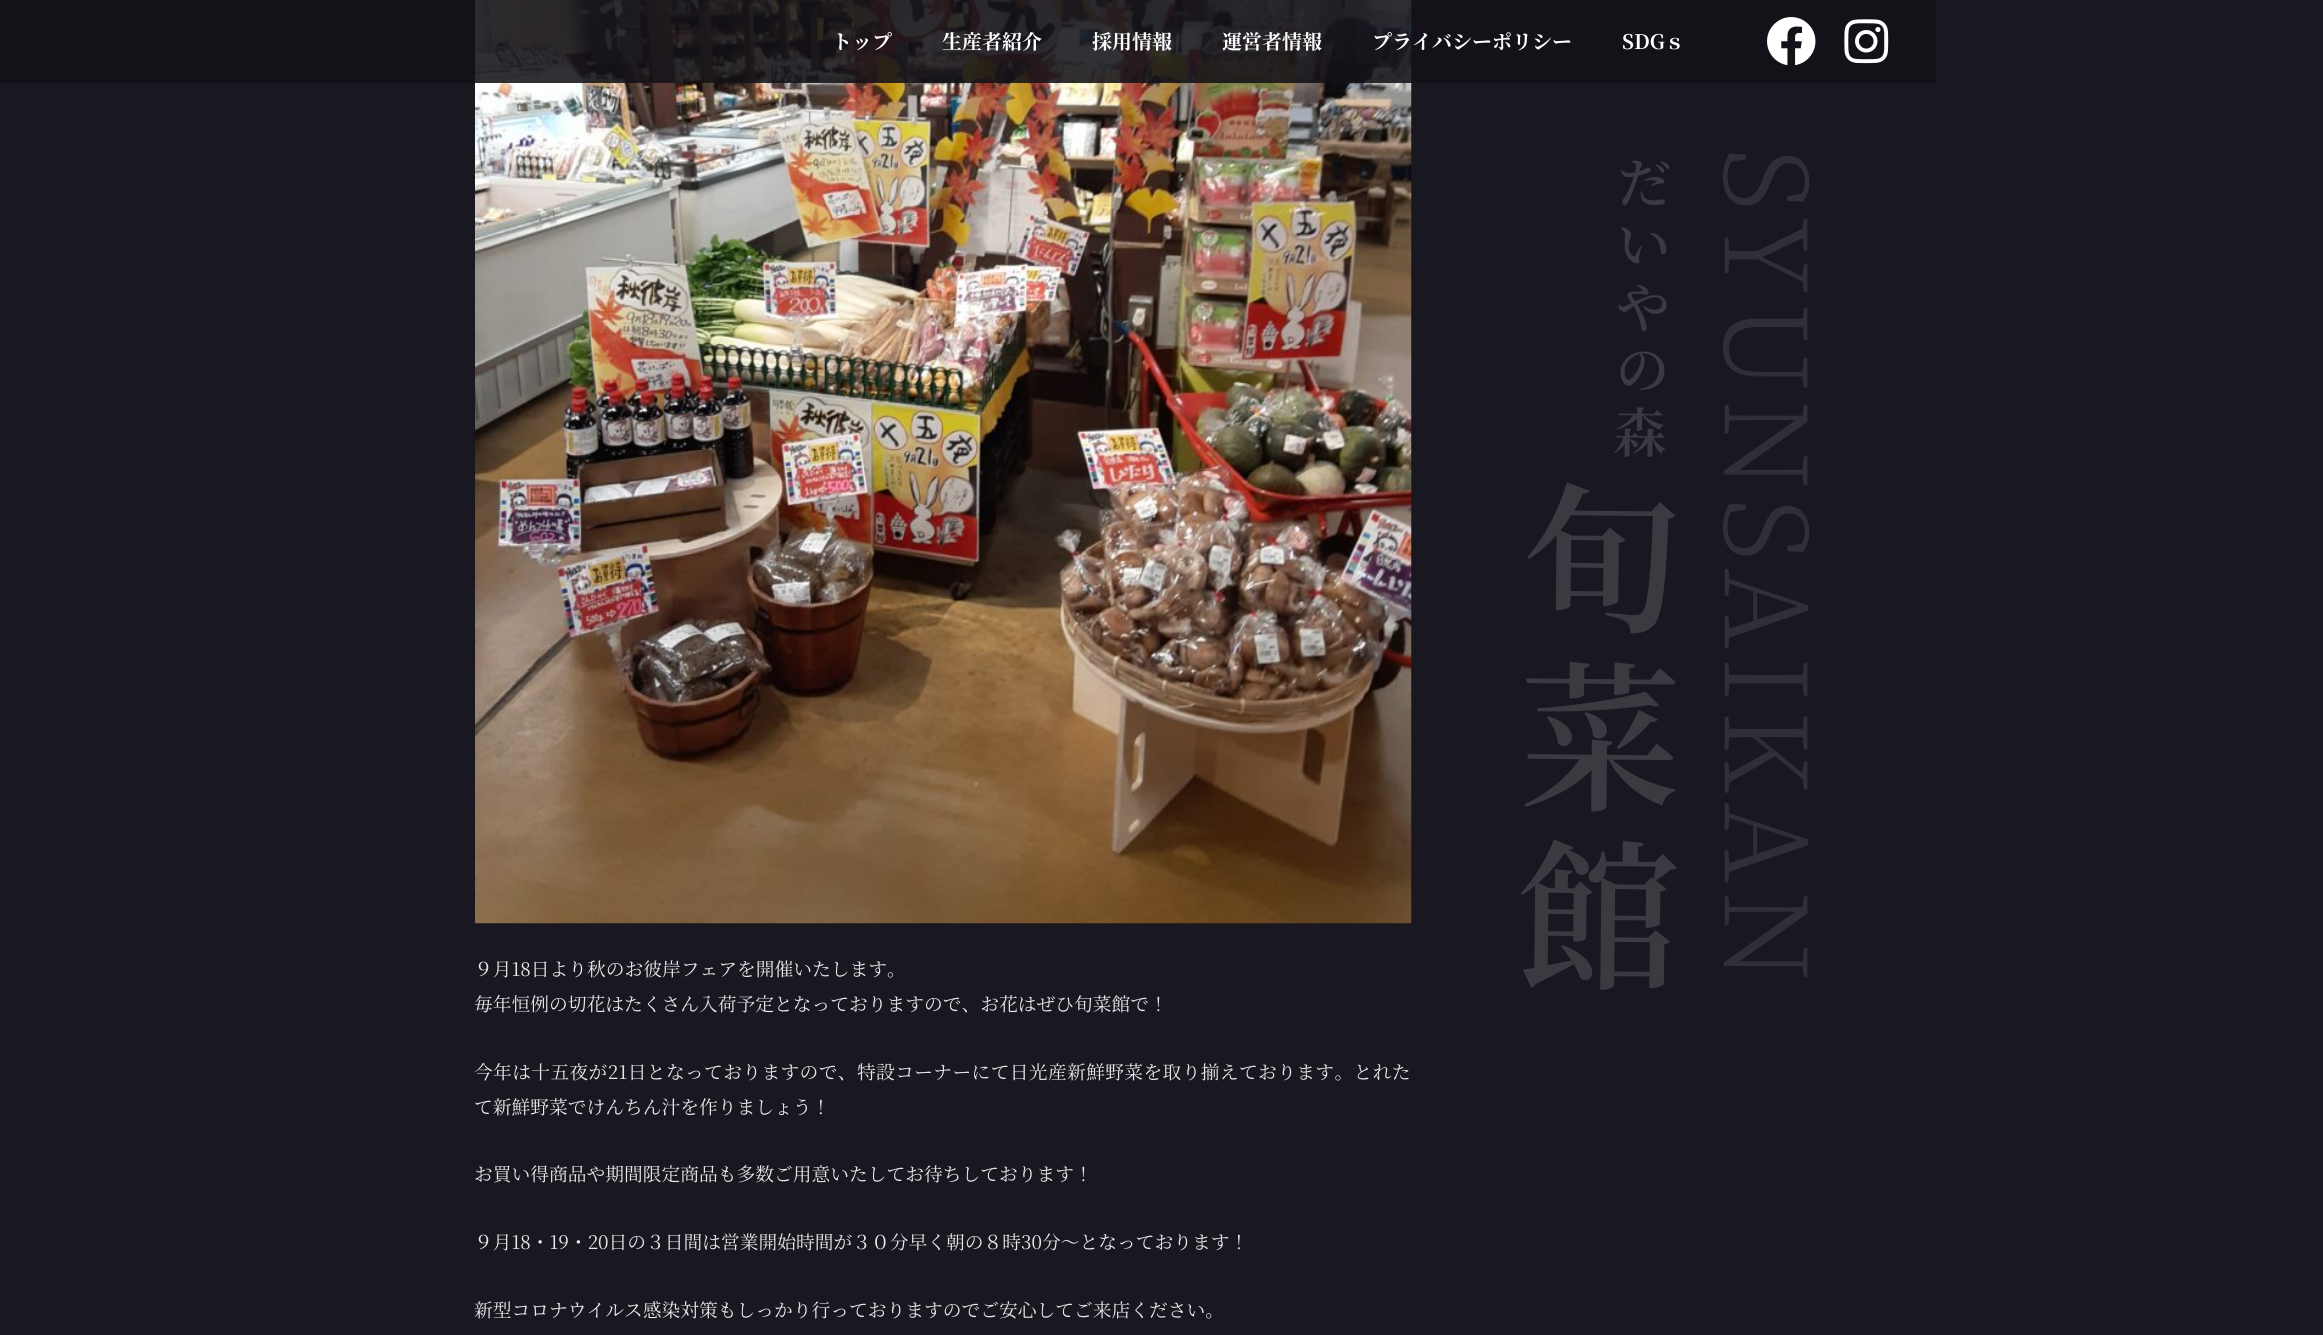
import math
import cairo

surface = cairo.ImageSurface(cairo.FORMAT_RGB24, 2323, 1335)
ctx = cairo.Context(surface)
options = cairo.FontOptions()
options.set_hint_metrics(cairo.HINT_METRICS_OFF)
options.set_hint_style(cairo.HINT_STYLE_NONE)
ctx.set_font_options(options)
ctx.set_miter_limit(4)


def spaced_text(x, y, s, letter, word):
    ctx.move_to(x, y)
    for ch in s:
        ctx.show_text(ch)
        ctx.rel_move_to(letter + word * (ch == ' '), 0)


def picture(path, x, y, w, h):
    ctx.save()
    ctx.set_source_surface(cairo.ImageSurface.create_from_png(path), x, y)
    ctx.rectangle(x, y, w, h)
    ctx.fill()
    ctx.restore()


ctx.set_source_rgb(0.098, 0.09, 0.125)
ctx.paint()
picture("img4.png", 475, 0, 937, 924)
ctx.set_source_rgba(0.075, 0.071, 0.09, 0.87)
ctx.rectangle(0, 0, 1936, 83)
ctx.fill()
ctx.select_font_face("Noto Serif JP", cairo.FONT_SLANT_NORMAL, cairo.FONT_WEIGHT_BOLD)
ctx.set_font_size(20)
ctx.set_source_rgb(1, 1, 1)
ctx.move_to(832, 49)
ctx.show_text("トップ")
ctx.move_to(942, 49)
ctx.show_text("生産者紹介")
ctx.move_to(1092, 49)
ctx.show_text("採用情報")
ctx.move_to(1222, 49)
ctx.show_text("運営者情報")
ctx.move_to(1372, 49)
ctx.show_text("プライバシーポリシー")
ctx.move_to(1622, 49)
ctx.show_text("SDGｓ")
picture("img1.png", 1767, 17, 49, 49)
picture("img2.png", 1844, 19, 45, 45)
picture("img3.png", 1520, 153, 290, 837)
ctx.select_font_face("Noto Serif JP")
ctx.set_font_size(18.75)
ctx.set_source_rgb(0.914, 0.914, 0.914)
ctx.move_to(474, 976)
ctx.show_text("９月18日より秋のお彼岸フェアを開催いたします。")
ctx.move_to(474, 1011)
ctx.show_text("毎年恒例の切花はたくさん入荷予定となっておりますので、お花はぜひ旬菜館で！")
spaced_text(474, 1079, "今年は十五夜が21日となっておりますので、特設コーナーにて日光産新鮮野菜を取り揃えております。とれた", 0.35, 0)
ctx.move_to(474, 1114)
ctx.show_text("て新鮮野菜でけんちん汁を作りましょう！")
ctx.move_to(474, 1181)
ctx.show_text("お買い得商品や期間限定商品も多数ご用意いたしてお待ちしております！")
ctx.move_to(474, 1249)
ctx.show_text("９月18・19・20日の３日間は営業開始時間が３０分早く朝の８時30分～となっております！")
ctx.move_to(474, 1317)
ctx.show_text("新型コロナウイルス感染対策もしっかり行っておりますのでご安心してご来店ください。")
surface.write_to_png("page.png")
